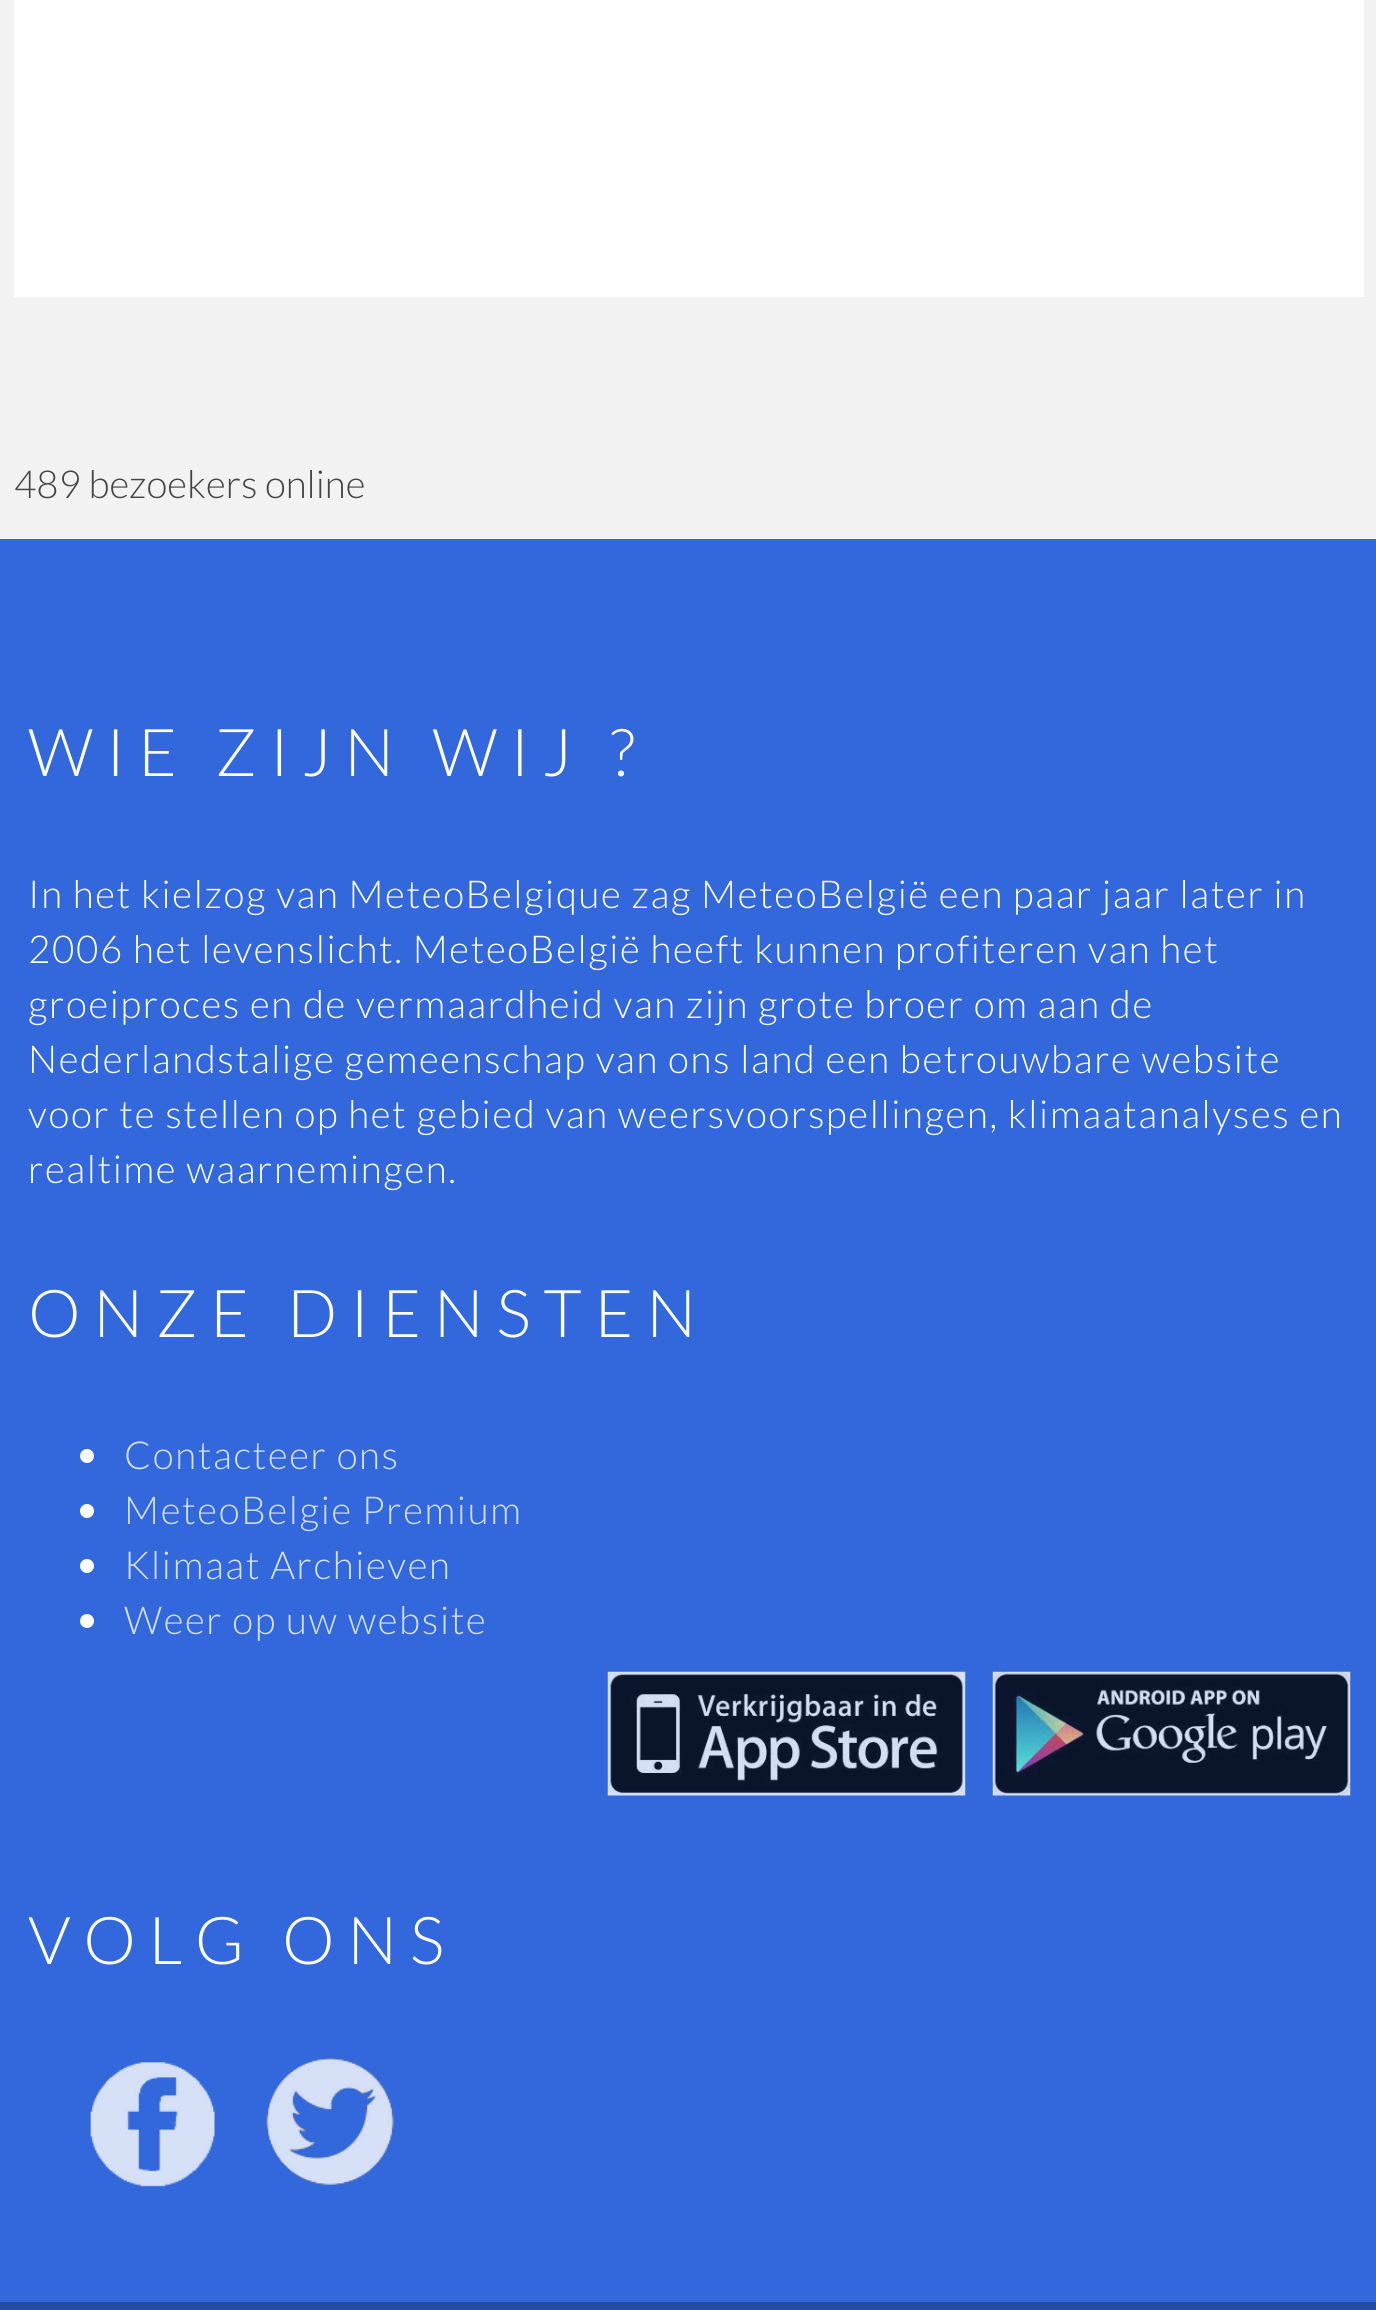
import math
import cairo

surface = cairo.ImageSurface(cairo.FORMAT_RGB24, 1376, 2310)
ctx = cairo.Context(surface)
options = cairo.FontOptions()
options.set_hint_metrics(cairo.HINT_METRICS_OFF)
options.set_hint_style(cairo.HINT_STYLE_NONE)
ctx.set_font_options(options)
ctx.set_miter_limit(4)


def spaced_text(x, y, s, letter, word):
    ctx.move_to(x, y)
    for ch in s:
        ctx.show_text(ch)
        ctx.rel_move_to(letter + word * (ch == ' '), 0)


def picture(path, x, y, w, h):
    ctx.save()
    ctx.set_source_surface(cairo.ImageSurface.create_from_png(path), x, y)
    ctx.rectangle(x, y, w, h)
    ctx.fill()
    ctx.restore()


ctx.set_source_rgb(0.949, 0.949, 0.949)
ctx.paint()
ctx.set_source_rgb(1, 1, 1)
ctx.rectangle(14, 0, 1350, 297)
ctx.fill()
ctx.select_font_face("Lato Light")
ctx.set_font_size(38.5)
ctx.set_source_rgb(0.267, 0.267, 0.267)
ctx.move_to(14, 498)
ctx.show_text("489 bezoekers online")
ctx.set_source_rgb(0.196, 0.408, 0.859)
ctx.rectangle(0, 539, 1376, 1763)
ctx.fill()
ctx.set_font_size(66)
ctx.set_source_rgb(1, 1, 1)
spaced_text(28, 776, "WIE ZIJN WIJ ?", 12.6, 0)
ctx.set_font_size(38.5)
spaced_text(28, 908, "In het kielzog van MeteoBelgique zag MeteoBelgië een paar jaar later in", 1.65, 0)
spaced_text(28, 963, "2006 het levenslicht. MeteoBelgië heeft kunnen profiteren van het", 1.65, 0)
spaced_text(28, 1018, "groeiproces en de vermaardheid van zijn grote broer om aan de", 1.65, 0)
spaced_text(28, 1073, "Nederlandstalige gemeenschap van ons land een betrouwbare website", 1.65, 0)
spaced_text(28, 1128, "voor te stellen op het gebied van weersvoorspellingen, klimaatanalyses en", 1.65, 0)
spaced_text(28, 1183, "realtime waarnemingen.", 1.65, 0)
ctx.set_font_size(66)
spaced_text(28, 1337, "ONZE DIENSTEN", 12.6, 0)
ctx.new_path()
ctx.arc(87, 1456, 7, 0, 2 * math.pi)
ctx.fill()
ctx.set_font_size(38.5)
ctx.set_source_rgb(0.839, 0.882, 0.973)
spaced_text(124, 1469, "Contacteer ons", 1.65, 0)
ctx.set_source_rgb(1, 1, 1)
ctx.new_path()
ctx.arc(87, 1511, 7, 0, 2 * math.pi)
ctx.fill()
ctx.set_source_rgb(0.839, 0.882, 0.973)
spaced_text(124, 1524, "MeteoBelgie Premium", 1.65, 0)
ctx.set_source_rgb(1, 1, 1)
ctx.new_path()
ctx.arc(87, 1566, 7, 0, 2 * math.pi)
ctx.fill()
ctx.set_source_rgb(0.839, 0.882, 0.973)
spaced_text(124, 1579, "Klimaat Archieven", 1.65, 0)
ctx.set_source_rgb(1, 1, 1)
ctx.new_path()
ctx.arc(87, 1621, 7, 0, 2 * math.pi)
ctx.fill()
ctx.set_source_rgb(0.839, 0.882, 0.973)
spaced_text(124, 1634, "Weer op uw website", 1.65, 0)
picture("img1.png", 607, 1671, 359, 125)
picture("img2.png", 992, 1671, 359, 125)
ctx.set_font_size(66)
ctx.set_source_rgb(1, 1, 1)
spaced_text(28, 1964, "VOLG ONS", 12.6, 0)
picture("img3.png", 90, 2062, 125, 125)
picture("img4.png", 266, 2058, 128, 127)
ctx.set_source_rgb(0.137, 0.298, 0.643)
ctx.rectangle(0, 2302, 1376, 8)
ctx.fill()
surface.write_to_png("page.png")
